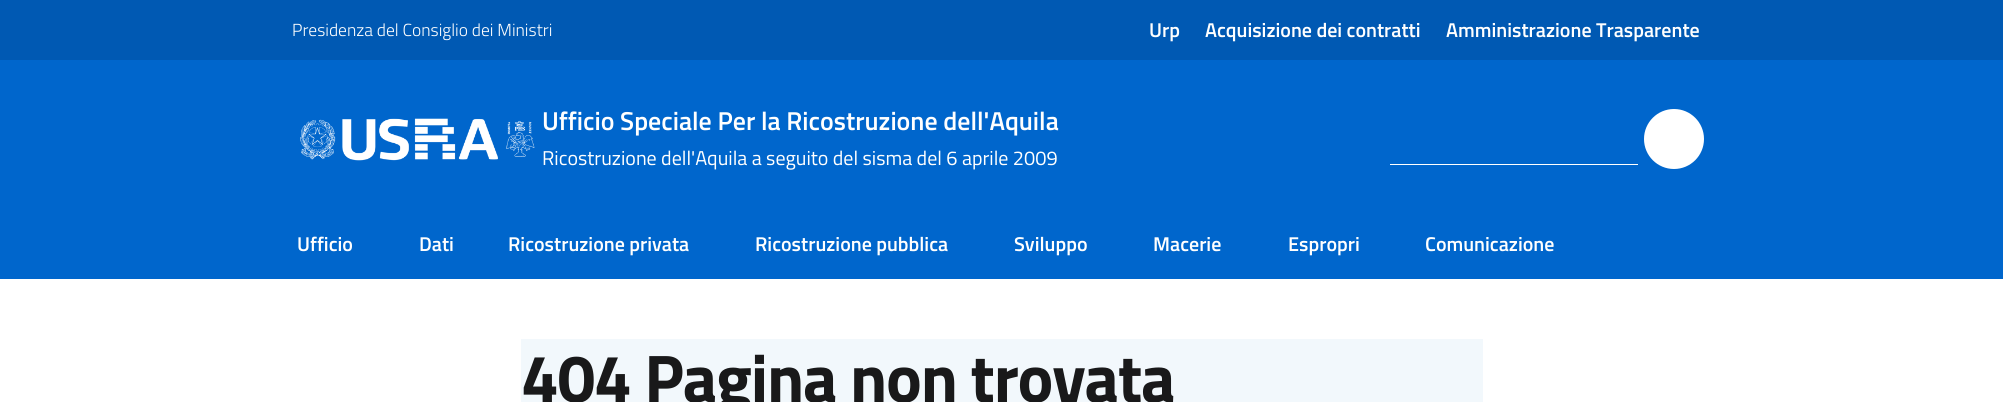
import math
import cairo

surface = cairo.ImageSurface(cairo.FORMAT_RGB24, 2003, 402)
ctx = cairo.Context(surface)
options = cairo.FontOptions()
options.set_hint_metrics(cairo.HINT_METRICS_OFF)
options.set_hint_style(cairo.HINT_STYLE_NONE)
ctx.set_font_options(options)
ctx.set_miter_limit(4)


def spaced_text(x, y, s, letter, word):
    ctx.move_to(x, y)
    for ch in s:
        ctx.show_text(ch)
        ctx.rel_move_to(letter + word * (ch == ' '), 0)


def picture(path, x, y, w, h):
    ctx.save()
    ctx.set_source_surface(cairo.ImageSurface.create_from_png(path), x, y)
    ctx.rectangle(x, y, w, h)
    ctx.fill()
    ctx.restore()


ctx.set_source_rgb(1, 1, 1)
ctx.paint()
ctx.set_source_rgb(0, 0.4, 0.8)
ctx.rectangle(0, 60, 2003, 219)
ctx.fill()
ctx.set_source_rgb(0, 0.349, 0.702)
ctx.rectangle(0, 0, 2003, 60)
ctx.fill()
ctx.select_font_face("Titillium Web Light")
ctx.set_font_size(17.5)
ctx.set_source_rgb(1, 1, 1)
ctx.move_to(292, 36)
ctx.show_text("Presidenza del Consiglio dei Ministri")
ctx.select_font_face("Titillium Web SemiBold")
ctx.set_font_size(20)
ctx.move_to(1149, 37)
ctx.show_text("Urp")
ctx.move_to(1205, 37)
ctx.show_text("Acquisizione dei contratti")
ctx.move_to(1446, 37)
ctx.show_text("Amministrazione Trasparente")
picture("img1.png", 300, 118, 235, 43)
ctx.set_font_size(25.9)
ctx.move_to(542, 130)
ctx.show_text("Ufficio Speciale Per la Ricostruzione dell'Aquila")
ctx.select_font_face("Titillium Web")
ctx.set_font_size(20)
ctx.move_to(542, 165)
ctx.show_text("Ricostruzione dell'Aquila a seguito del sisma del 6 aprile 2009")
ctx.rectangle(1390, 164, 248, 1)
ctx.fill()
ctx.arc(1674, 139, 30, 0, 2 * math.pi)
ctx.fill()
ctx.select_font_face("Titillium Web SemiBold")
ctx.move_to(297, 251)
ctx.show_text("Ufficio")
ctx.move_to(419, 251)
ctx.show_text("Dati")
ctx.move_to(508, 251)
ctx.show_text("Ricostruzione privata")
ctx.move_to(755, 251)
ctx.show_text("Ricostruzione pubblica")
ctx.move_to(1014, 251)
ctx.show_text("Sviluppo")
ctx.move_to(1153, 251)
ctx.show_text("Macerie")
ctx.move_to(1288, 251)
ctx.show_text("Espropri")
ctx.move_to(1425, 251)
ctx.show_text("Comunicazione")
ctx.set_source_rgb(0.949, 0.969, 0.988)
ctx.rectangle(521, 339, 962, 63)
ctx.fill()
ctx.select_font_face("Titillium Web", cairo.FONT_SLANT_NORMAL, cairo.FONT_WEIGHT_BOLD)
ctx.set_font_size(67.5)
ctx.set_source_rgb(0.098, 0.098, 0.102)
spaced_text(521, 402, "404 Pagina non trovata", -1.25, 0)
surface.write_to_png("page.png")
